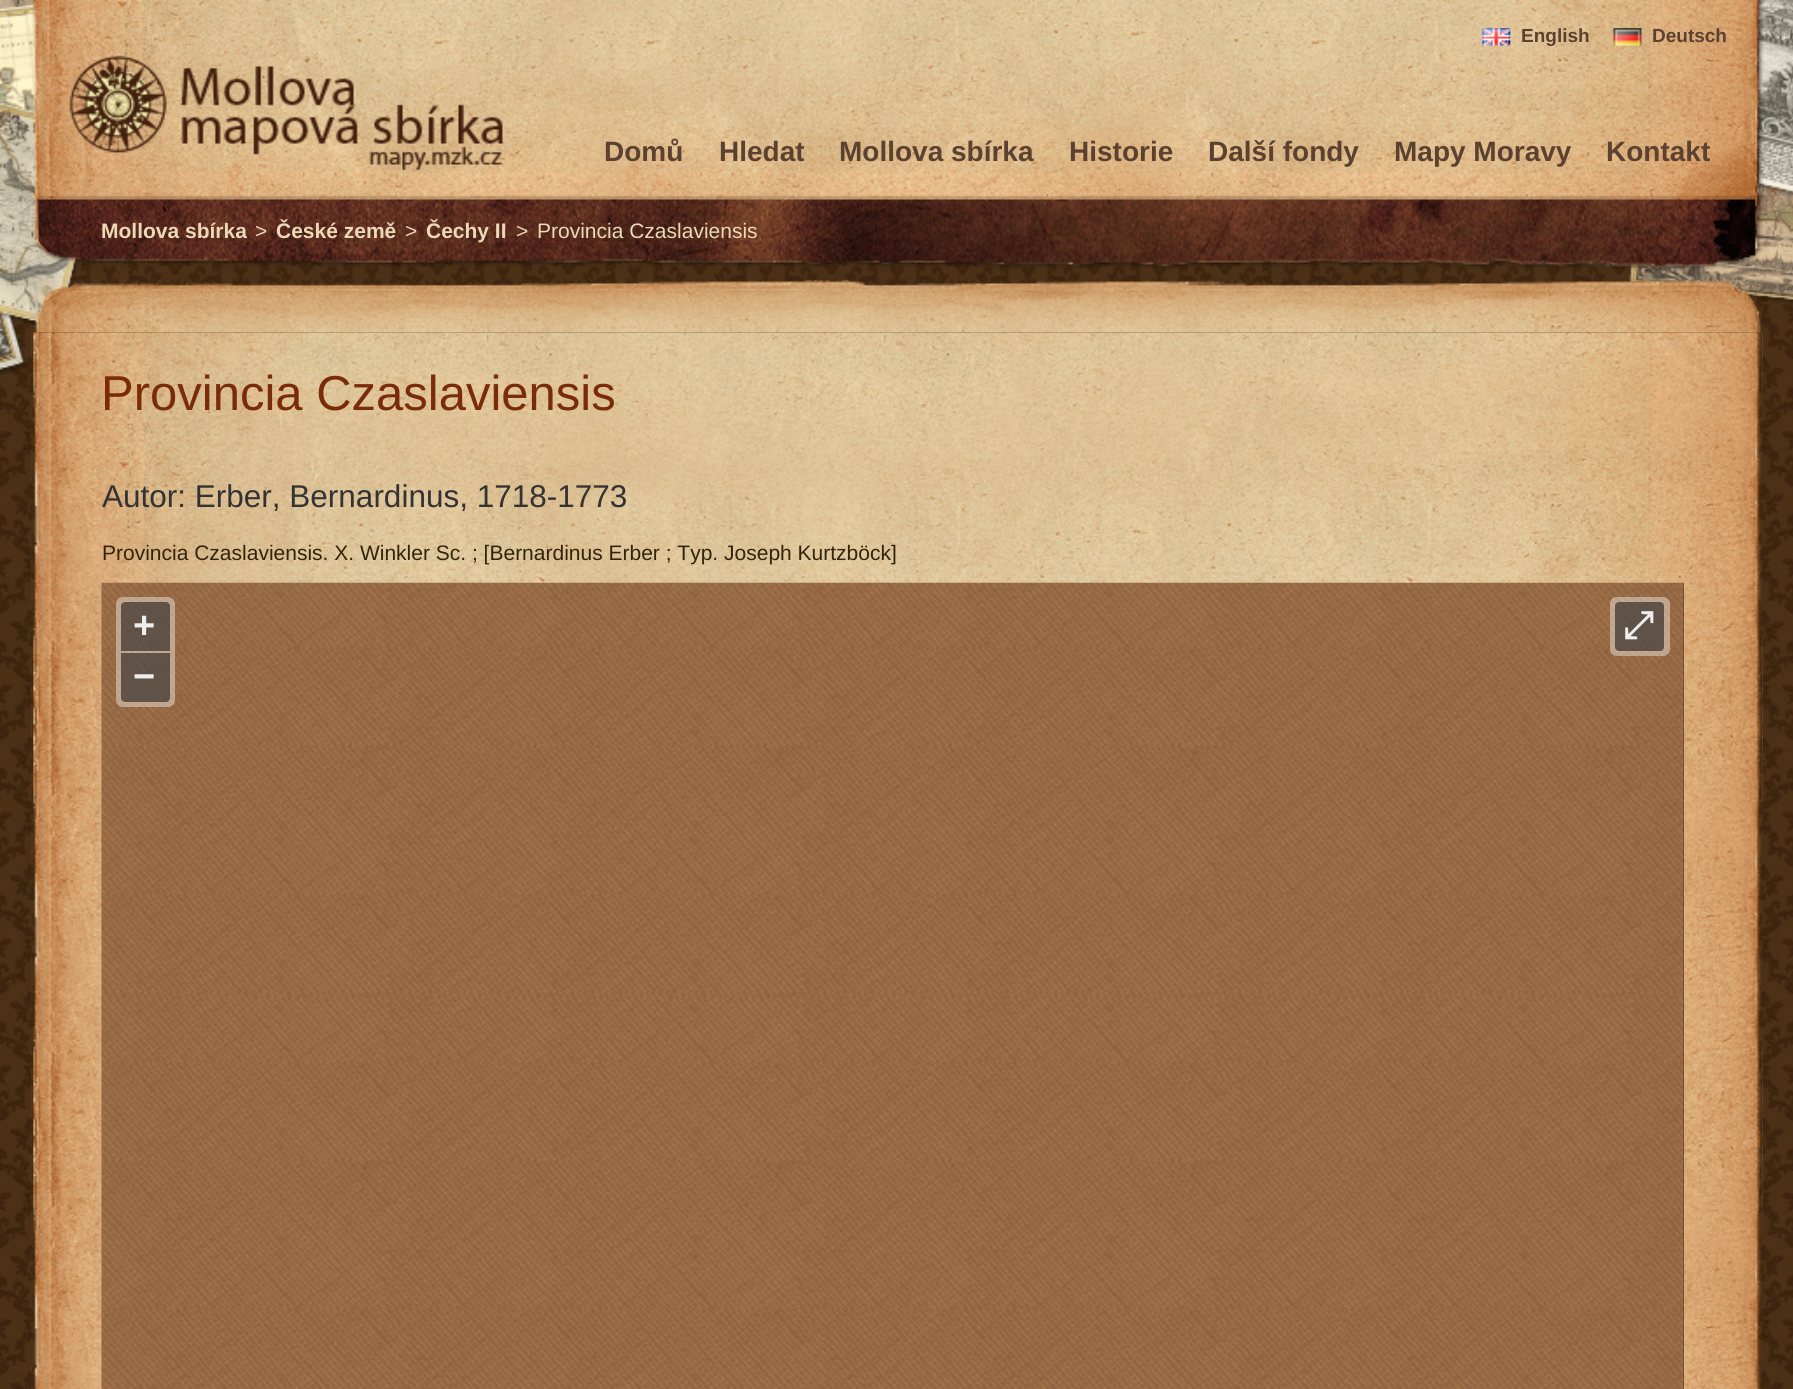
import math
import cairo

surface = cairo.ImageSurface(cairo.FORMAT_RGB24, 1793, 1389)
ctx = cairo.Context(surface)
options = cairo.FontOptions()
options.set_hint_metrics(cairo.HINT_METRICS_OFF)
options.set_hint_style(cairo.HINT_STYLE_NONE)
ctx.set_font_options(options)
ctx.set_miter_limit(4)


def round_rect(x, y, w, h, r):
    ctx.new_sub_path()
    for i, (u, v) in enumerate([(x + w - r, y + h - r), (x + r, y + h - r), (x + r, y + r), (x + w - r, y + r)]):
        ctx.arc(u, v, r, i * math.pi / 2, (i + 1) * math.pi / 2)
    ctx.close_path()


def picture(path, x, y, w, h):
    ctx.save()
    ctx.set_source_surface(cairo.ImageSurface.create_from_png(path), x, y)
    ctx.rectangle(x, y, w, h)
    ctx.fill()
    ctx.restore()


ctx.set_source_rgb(1, 1, 1)
ctx.paint()
picture("img1.png", 0, 0, 1793, 1389)
picture("img2.png", 0, 0, 1793, 376)
picture("img3.png", 31, 0, 1733, 271)
picture("img4.png", 1482, 28, 29, 18)
ctx.select_font_face("Liberation Sans", cairo.FONT_SLANT_NORMAL, cairo.FONT_WEIGHT_BOLD)
ctx.set_font_size(19)
ctx.set_source_rgb(0.357, 0.255, 0.184)
ctx.move_to(1521, 42)
ctx.show_text("English")
picture("img5.png", 1613, 28, 29, 18)
ctx.move_to(1652, 42)
ctx.show_text("Deutsch")
picture("img6.png", 69, 55, 436, 116)
ctx.set_font_size(28)
ctx.move_to(604, 161)
ctx.show_text("Domů")
ctx.move_to(719, 161)
ctx.show_text("Hledat")
ctx.move_to(839, 161)
ctx.show_text("Mollova sbírka")
ctx.move_to(1069, 161)
ctx.show_text("Historie")
ctx.move_to(1208, 161)
ctx.show_text("Další fondy")
ctx.move_to(1394, 161)
ctx.show_text("Mapy Moravy")
ctx.move_to(1606, 161)
ctx.show_text("Kontakt")
ctx.set_font_size(21)
ctx.set_source_rgb(0.918, 0.851, 0.718)
ctx.move_to(101, 238)
ctx.show_text("Mollova sbírka")
ctx.select_font_face("Liberation Sans")
ctx.move_to(255, 238)
ctx.show_text(">")
ctx.select_font_face("Liberation Sans", cairo.FONT_SLANT_NORMAL, cairo.FONT_WEIGHT_BOLD)
ctx.move_to(276, 238)
ctx.show_text("České země")
ctx.select_font_face("Liberation Sans")
ctx.move_to(405, 238)
ctx.show_text(">")
ctx.select_font_face("Liberation Sans", cairo.FONT_SLANT_NORMAL, cairo.FONT_WEIGHT_BOLD)
ctx.move_to(426, 238)
ctx.show_text("Čechy II")
ctx.select_font_face("Liberation Sans")
ctx.move_to(516, 238)
ctx.show_text(">")
ctx.move_to(537, 238)
ctx.show_text("Provincia Czaslaviensis")
picture("img7.png", 34, 280, 1727, 53)
picture("img8.png", 31, 332, 1732, 1057)
ctx.set_font_size(49)
ctx.set_source_rgb(0.478, 0.169, 0.039)
ctx.move_to(101, 410)
ctx.show_text("Provincia Czaslaviensis")
ctx.set_font_size(31.5)
ctx.set_source_rgb(0.2, 0.2, 0.2)
ctx.move_to(102, 507)
ctx.show_text("Autor: Erber, Bernardinus, 1718-1773")
ctx.set_font_size(21)
ctx.set_source_rgb(0.196, 0.141, 0.043)
ctx.move_to(102, 560)
ctx.show_text("Provincia Czaslaviensis. X. Winkler Sc. ; [Bernardinus Erber ; Typ. Joseph Kurtzböck]")
ctx.set_source_rgb(0.333, 0.212, 0.153)
ctx.rectangle(1683, 583, 1, 806)
ctx.fill()
picture("img9.png", 101, 582, 1583, 807)
ctx.set_source_rgba(1, 1, 1, 0.4)
round_rect(116, 597, 59, 110, 7)
ctx.fill()
ctx.set_source_rgba(0, 0, 0, 0.5)
ctx.new_path()
ctx.move_to(125, 602)
ctx.line_to(166, 602)
ctx.curve_to(168, 602, 170, 604, 170, 606)
ctx.line_to(170, 651)
ctx.line_to(121, 651)
ctx.line_to(121, 606)
ctx.curve_to(121, 604, 123, 602, 125, 602)
ctx.close_path()
ctx.fill()
ctx.select_font_face("Liberation Sans", cairo.FONT_SLANT_NORMAL, cairo.FONT_WEIGHT_BOLD)
ctx.set_font_size(38)
ctx.set_source_rgb(0.933, 0.933, 0.933)
ctx.move_to(133, 638)
ctx.show_text("+")
ctx.set_source_rgba(0, 0, 0, 0.5)
ctx.new_path()
ctx.move_to(121, 653)
ctx.line_to(170, 653)
ctx.line_to(170, 698)
ctx.curve_to(170, 700, 168, 702, 166, 702)
ctx.line_to(125, 702)
ctx.curve_to(123, 702, 121, 700, 121, 698)
ctx.close_path()
ctx.fill()
ctx.set_source_rgb(0.933, 0.933, 0.933)
ctx.move_to(133, 689)
ctx.show_text("−")
ctx.set_source_rgba(1, 1, 1, 0.4)
round_rect(1610, 597, 60, 59, 7)
ctx.fill()
ctx.set_source_rgba(0, 0, 0, 0.5)
round_rect(1615, 602, 49, 49, 4)
ctx.fill()
ctx.select_font_face("FreeSerif", cairo.FONT_SLANT_NORMAL, cairo.FONT_WEIGHT_BOLD)
ctx.set_source_rgb(0.933, 0.933, 0.933)
ctx.move_to(1623, 638)
ctx.show_text("⤢")
surface.write_to_png("page.png")
